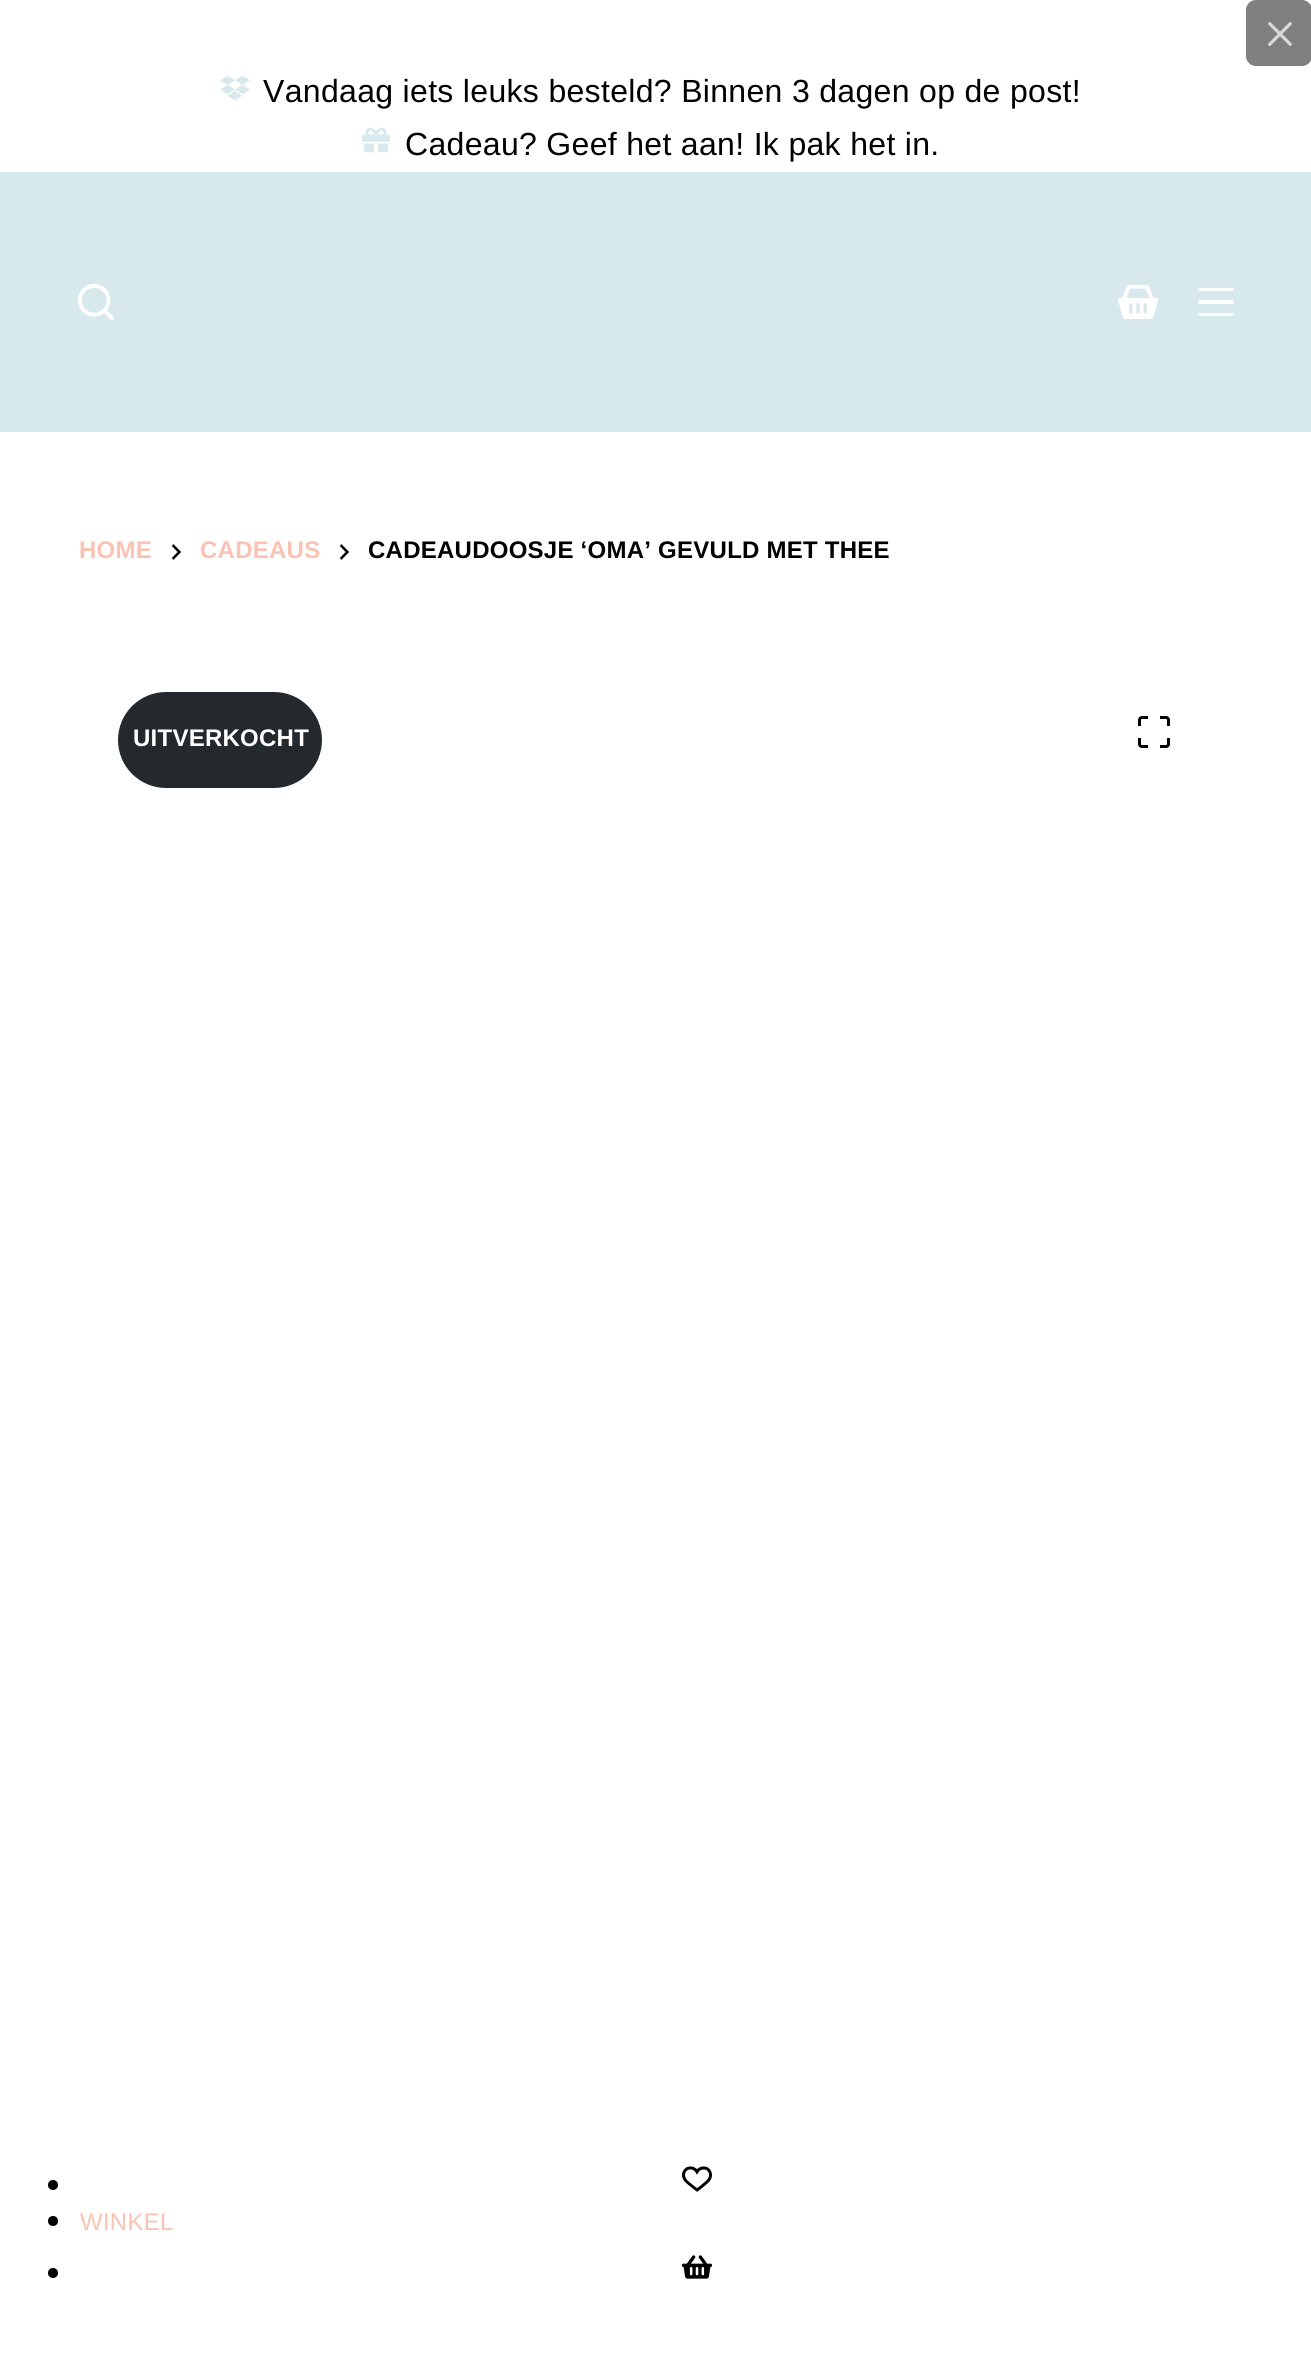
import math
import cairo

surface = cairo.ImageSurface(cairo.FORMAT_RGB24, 1311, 2358)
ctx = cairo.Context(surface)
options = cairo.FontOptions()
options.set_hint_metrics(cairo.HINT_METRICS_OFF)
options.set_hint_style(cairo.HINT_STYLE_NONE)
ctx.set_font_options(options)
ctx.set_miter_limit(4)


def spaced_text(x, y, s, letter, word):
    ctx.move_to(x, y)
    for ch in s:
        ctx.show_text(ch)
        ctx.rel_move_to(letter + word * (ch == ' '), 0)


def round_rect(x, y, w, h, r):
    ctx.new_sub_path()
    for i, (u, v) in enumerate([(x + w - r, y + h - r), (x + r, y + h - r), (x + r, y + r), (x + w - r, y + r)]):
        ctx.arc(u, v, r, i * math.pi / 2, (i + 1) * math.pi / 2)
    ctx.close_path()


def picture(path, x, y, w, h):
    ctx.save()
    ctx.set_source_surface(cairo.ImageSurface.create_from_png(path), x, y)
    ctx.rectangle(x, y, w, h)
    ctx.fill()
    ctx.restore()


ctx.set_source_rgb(1, 1, 1)
ctx.paint()
ctx.set_source_rgb(0.502, 0.502, 0.502)
round_rect(1246, 0, 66, 66, 10)
ctx.fill()
picture("img1.png", 1268, 22, 24, 24)
picture("img2.png", 220, 75, 30, 25)
ctx.select_font_face("Liberation Sans")
ctx.set_font_size(32)
ctx.set_source_rgb(0, 0, 0)
spaced_text(263, 102, "Vandaag iets leuks besteld? Binnen 3 dagen op de post!", 0.32, 0)
picture("img3.png", 362, 127, 28, 26)
spaced_text(405, 155, "Cadeau? Geef het aan! Ik pak het in.", 0.32, 0)
ctx.set_source_rgb(0.843, 0.914, 0.929)
ctx.rectangle(0, 172, 1311, 260)
ctx.fill()
picture("img4.png", 78, 284, 36, 36)
picture("img5.png", 1118, 285, 40, 34)
ctx.set_source_rgb(1, 1, 1)
round_rect(1198, 288, 36, 3, 1.5)
ctx.fill()
round_rect(1198, 300, 36, 4, 2)
ctx.fill()
round_rect(1198, 313, 36, 3, 1.5)
ctx.fill()
ctx.select_font_face("Liberation Sans", cairo.FONT_SLANT_NORMAL, cairo.FONT_WEIGHT_BOLD)
ctx.set_font_size(24)
ctx.set_source_rgb(0.98, 0.761, 0.698)
spaced_text(79, 558, "HOME", 0.25, 0)
picture("img6.png", 172, 544, 10, 16)
spaced_text(200, 558, "CADEAUS", 0.25, 0)
picture("img6.png", 340, 544, 10, 16)
ctx.set_source_rgb(0, 0, 0)
spaced_text(368, 558, "CADEAUDOOSJE ‘OMA’ GEVULD MET THEE", 0.25, 0)
ctx.set_source_rgb(0.141, 0.161, 0.18)
round_rect(118, 692, 204, 96, 48)
ctx.fill()
ctx.set_source_rgb(1, 1, 1)
spaced_text(133, 746, "UITVERKOCHT", 0.25, 0)
picture("img7.png", 1138, 716, 32, 32)
ctx.set_source_rgb(0, 0, 0)
ctx.arc(53, 2185, 5, 0, 2 * math.pi)
ctx.fill()
picture("img8.png", 682, 2166, 30, 26)
ctx.arc(53, 2221, 5, 0, 2 * math.pi)
ctx.fill()
ctx.select_font_face("Liberation Sans")
ctx.set_source_rgb(0.98, 0.761, 0.698)
spaced_text(80, 2230, "WINKEL", 0.25, 0)
ctx.set_source_rgb(0, 0, 0)
ctx.new_path()
ctx.arc(53, 2273, 5, 0, 2 * math.pi)
ctx.fill()
picture("img9.png", 682, 2255, 30, 24)
surface.write_to_png("page.png")
